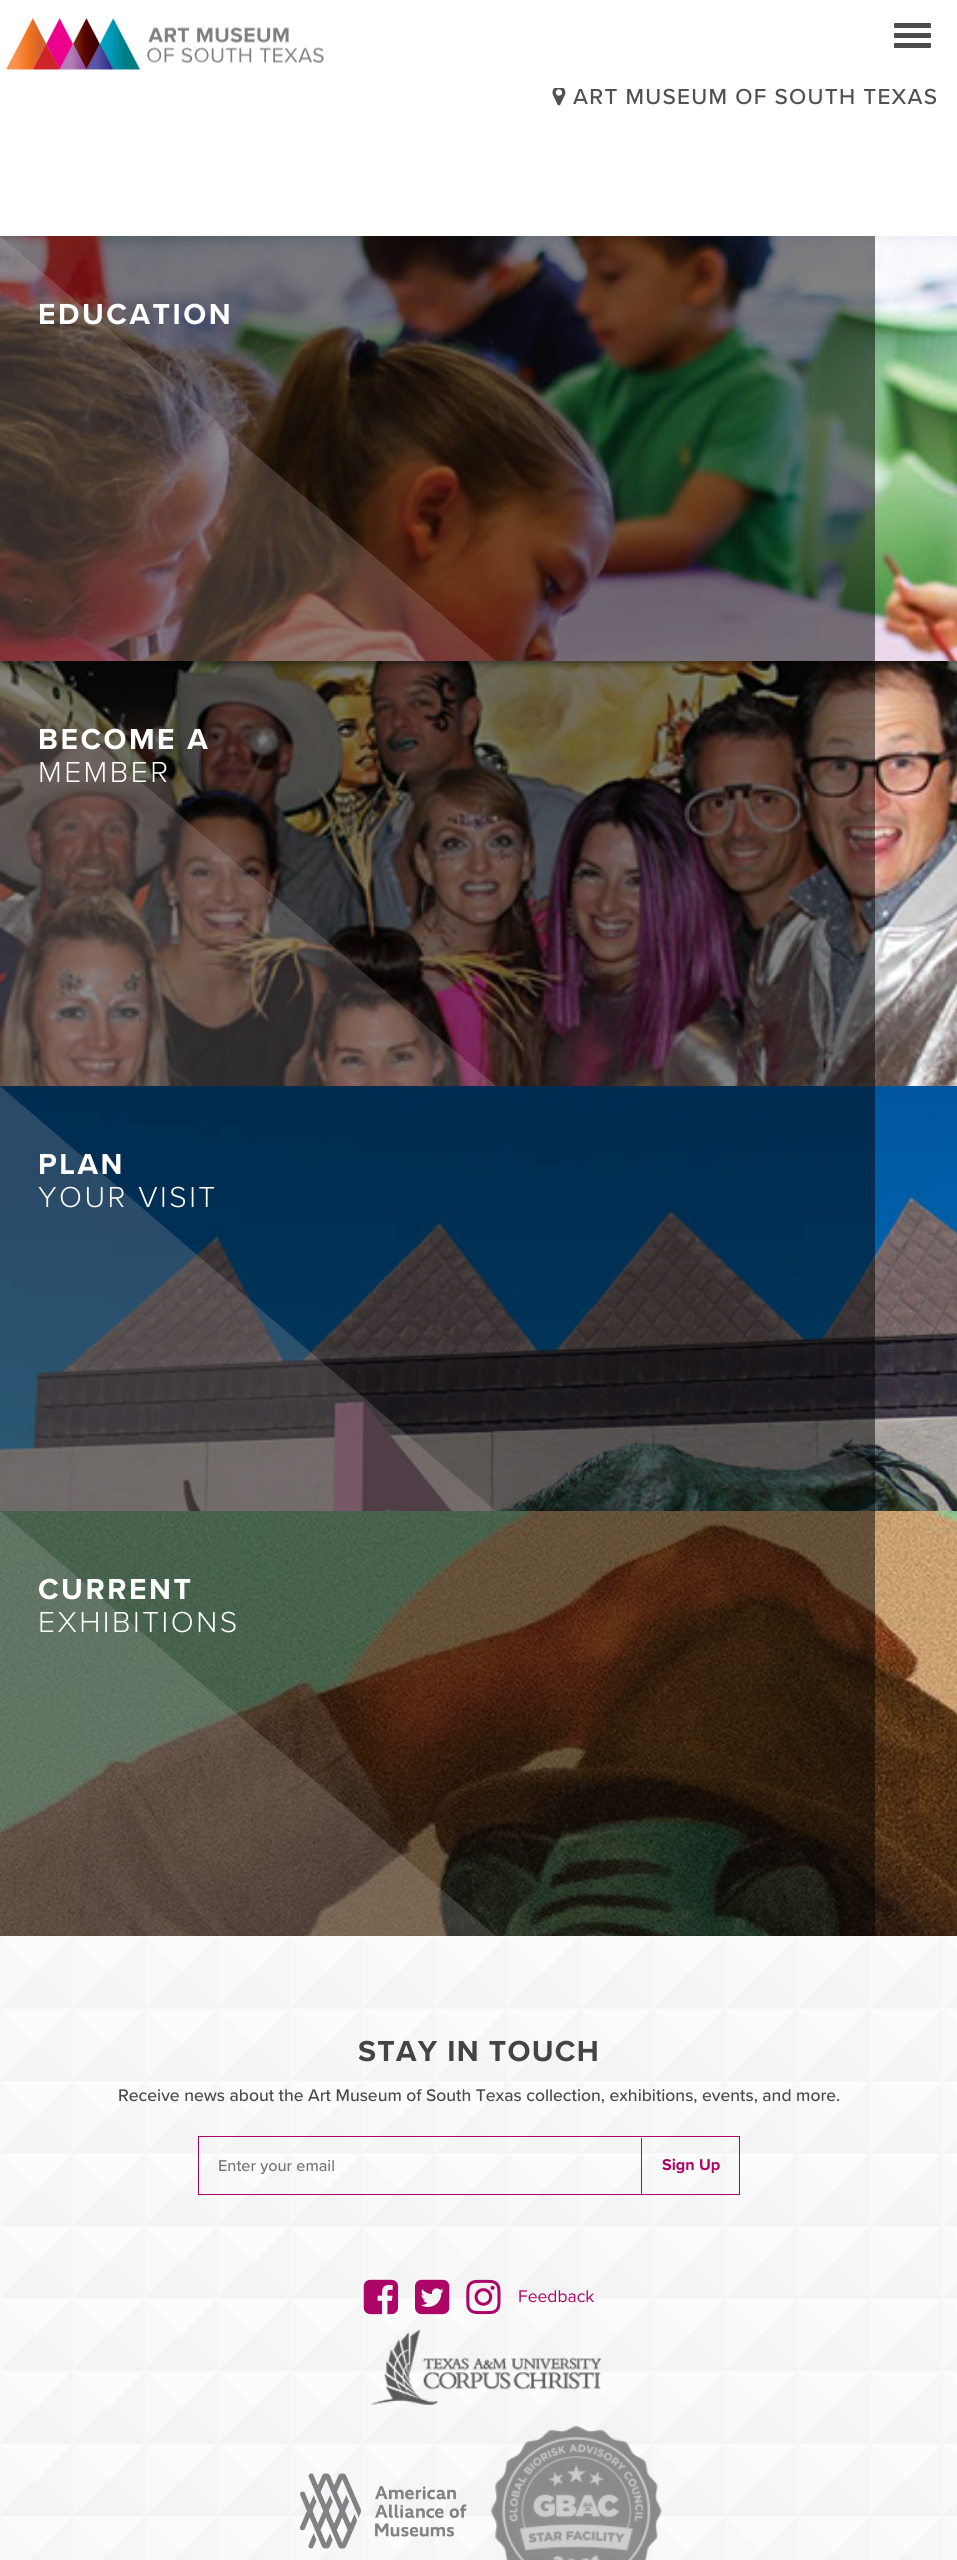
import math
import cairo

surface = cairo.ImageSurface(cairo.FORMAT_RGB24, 957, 2560)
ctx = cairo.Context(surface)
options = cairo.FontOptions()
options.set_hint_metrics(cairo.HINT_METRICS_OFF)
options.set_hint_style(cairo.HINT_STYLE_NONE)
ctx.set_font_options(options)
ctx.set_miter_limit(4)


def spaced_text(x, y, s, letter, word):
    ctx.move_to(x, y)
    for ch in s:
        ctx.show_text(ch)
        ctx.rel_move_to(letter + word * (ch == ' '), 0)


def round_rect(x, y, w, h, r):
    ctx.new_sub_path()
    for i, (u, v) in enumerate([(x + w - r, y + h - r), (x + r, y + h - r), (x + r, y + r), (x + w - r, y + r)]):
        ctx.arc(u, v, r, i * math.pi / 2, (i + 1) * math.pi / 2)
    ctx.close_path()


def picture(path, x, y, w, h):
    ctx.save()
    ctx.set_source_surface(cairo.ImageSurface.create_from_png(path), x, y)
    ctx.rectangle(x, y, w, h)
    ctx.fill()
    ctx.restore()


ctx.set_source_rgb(1, 1, 1)
ctx.paint()
picture("img1.png", 6, 18, 318, 52)
ctx.set_source_rgb(0.298, 0.298, 0.298)
round_rect(894, 33, 37, 5, 1)
ctx.fill()
round_rect(894, 23, 37, 5, 1)
ctx.fill()
round_rect(894, 43, 37, 5, 1)
ctx.fill()
picture("img2.png", 552, 88, 14, 18)
ctx.select_font_face("Proxima Nova Medium")
ctx.set_font_size(22.5)
ctx.set_source_rgb(0.314, 0.314, 0.314)
spaced_text(573, 104, "ART MUSEUM OF SOUTH TEXAS", 1.25, 0)
picture("img3.png", 0, 236, 957, 425)
ctx.save()
ctx.rectangle(0, 236, 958, 425)
ctx.clip()
ctx.set_source_rgba(0.816, 0.749, 0.749, 0.2)
ctx.new_path()
ctx.move_to(0, 1736)
ctx.line_to(0, 236)
ctx.line_to(875, 986)
ctx.close_path()
ctx.fill()
ctx.restore()
ctx.select_font_face("Proxima Nova", cairo.FONT_SLANT_NORMAL, cairo.FONT_WEIGHT_BOLD)
ctx.set_font_size(30)
ctx.set_source_rgb(1, 1, 1)
spaced_text(38, 324, "EDUCATION", 2.5, 0)
picture("img4.png", 0, 661, 957, 425)
ctx.save()
ctx.rectangle(0, 661, 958, 425)
ctx.clip()
ctx.set_source_rgba(0.816, 0.749, 0.749, 0.2)
ctx.new_path()
ctx.move_to(0, 2161)
ctx.line_to(0, 661)
ctx.line_to(875, 1411)
ctx.close_path()
ctx.fill()
ctx.restore()
spaced_text(38, 749, "BECOME A", 2.5, 0)
ctx.select_font_face("Proxima Nova Light")
spaced_text(38, 782, "MEMBER", 2.5, 0)
picture("img5.png", 0, 1086, 957, 425)
ctx.save()
ctx.rectangle(0, 1086, 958, 425)
ctx.clip()
ctx.set_source_rgba(0.816, 0.749, 0.749, 0.2)
ctx.new_path()
ctx.move_to(0, 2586)
ctx.line_to(0, 1086)
ctx.line_to(875, 1836)
ctx.close_path()
ctx.fill()
ctx.restore()
ctx.select_font_face("Proxima Nova", cairo.FONT_SLANT_NORMAL, cairo.FONT_WEIGHT_BOLD)
spaced_text(38, 1174, "PLAN", 2.5, 0)
ctx.select_font_face("Proxima Nova Light")
spaced_text(38, 1207, "YOUR VISIT", 2.5, 0)
picture("img6.png", 0, 1511, 957, 425)
ctx.save()
ctx.rectangle(0, 1511, 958, 425)
ctx.clip()
ctx.set_source_rgba(0.816, 0.749, 0.749, 0.2)
ctx.new_path()
ctx.move_to(0, 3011)
ctx.line_to(0, 1511)
ctx.line_to(875, 2261)
ctx.close_path()
ctx.fill()
ctx.restore()
ctx.select_font_face("Proxima Nova", cairo.FONT_SLANT_NORMAL, cairo.FONT_WEIGHT_BOLD)
spaced_text(38, 1599, "CURRENT", 2.5, 0)
ctx.select_font_face("Proxima Nova Light")
spaced_text(38, 1632, "EXHIBITIONS", 2.5, 0)
picture("img7.png", 0, 1936, 957, 624)
ctx.select_font_face("Proxima Nova", cairo.FONT_SLANT_NORMAL, cairo.FONT_WEIGHT_BOLD)
ctx.set_source_rgb(0.267, 0.267, 0.267)
spaced_text(358, 2061, "STAY IN TOUCH", 1.25, 0)
ctx.select_font_face("Proxima Nova Medium")
ctx.set_font_size(17.5)
ctx.set_source_rgb(0.282, 0.294, 0.294)
ctx.move_to(118, 2101)
ctx.show_text("Receive news about the Art Museum of South Texas collection, exhibitions, events, and more.")
ctx.rectangle(198.5, 2136.5, 541, 58)
ctx.set_source_rgb(0.678, 0.02, 0.404)
ctx.set_line_width(1)
ctx.stroke()
ctx.set_font_size(16.25)
ctx.set_source_rgb(0.459, 0.459, 0.459)
ctx.move_to(218, 2171)
ctx.show_text("Enter your email")
ctx.set_source_rgb(0.678, 0.02, 0.404)
ctx.rectangle(641, 2138, 1, 57)
ctx.fill()
ctx.select_font_face("Proxima Nova", cairo.FONT_SLANT_NORMAL, cairo.FONT_WEIGHT_BOLD)
ctx.move_to(662, 2170)
ctx.show_text("Sign Up")
picture("img8.png", 363, 2279, 36, 36)
picture("img9.png", 415, 2279, 35, 36)
picture("img10.png", 466, 2279, 35, 36)
ctx.select_font_face("Proxima Nova")
ctx.set_font_size(17.5)
ctx.move_to(518, 2302)
ctx.show_text("Feedback")
picture("img11.png", 370, 2329, 232, 76)
picture("img12.png", 300, 2473, 167, 76)
picture("img13.png", 491, 2425, 171, 135)
surface.write_to_png("page.png")
